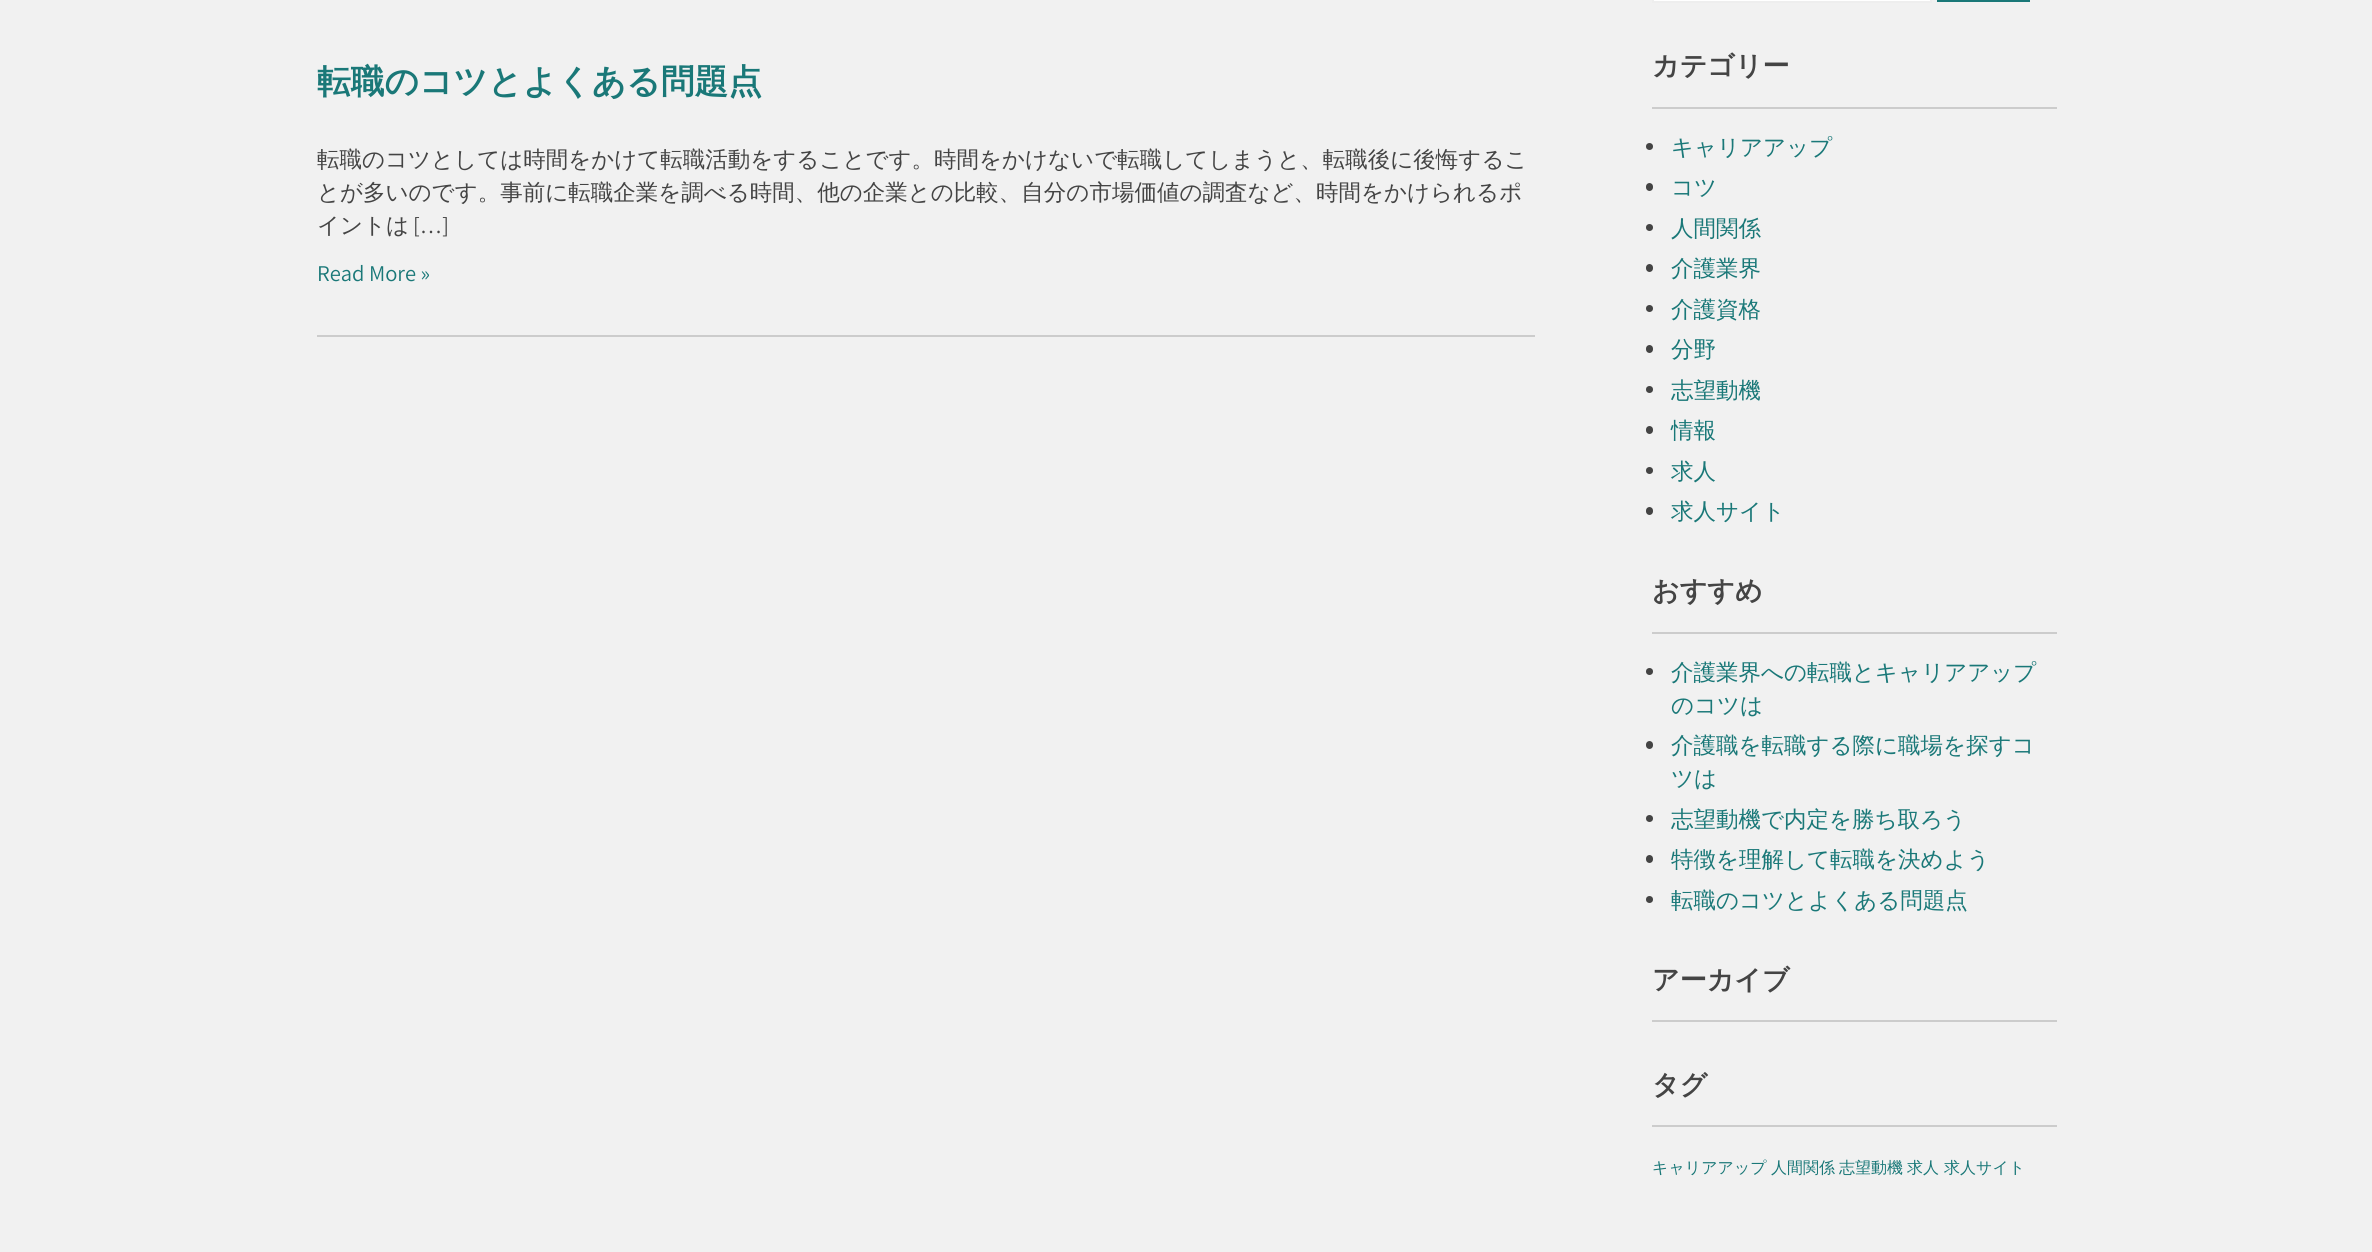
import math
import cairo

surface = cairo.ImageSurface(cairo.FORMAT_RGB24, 2372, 1252)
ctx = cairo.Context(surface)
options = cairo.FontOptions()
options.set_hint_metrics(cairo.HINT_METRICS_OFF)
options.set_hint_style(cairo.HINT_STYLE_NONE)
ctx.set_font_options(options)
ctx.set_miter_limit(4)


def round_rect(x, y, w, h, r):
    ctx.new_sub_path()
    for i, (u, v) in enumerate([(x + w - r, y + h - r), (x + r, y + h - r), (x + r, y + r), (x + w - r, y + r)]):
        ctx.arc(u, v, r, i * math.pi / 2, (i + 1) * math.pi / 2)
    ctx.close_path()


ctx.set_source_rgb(0.945, 0.945, 0.945)
ctx.paint()
ctx.set_source_rgb(0.8, 0.8, 0.8)
ctx.rectangle(317, 335, 1218, 2)
ctx.fill()
ctx.select_font_face("WenQuanYi Zen Hei", cairo.FONT_SLANT_NORMAL, cairo.FONT_WEIGHT_BOLD)
ctx.set_font_size(33.75)
ctx.set_source_rgb(0.102, 0.471, 0.471)
ctx.move_to(317, 93)
ctx.show_text("転職のコツとよくある問題点")
ctx.select_font_face("WenQuanYi Zen Hei Medium")
ctx.set_font_size(22.5)
ctx.set_source_rgb(0.267, 0.267, 0.267)
ctx.move_to(317, 167)
ctx.show_text("転職のコツとしては時間をかけて転職活動をすることです。時間をかけないで転職してしまうと、転職後に後悔するこ")
ctx.move_to(317, 200)
ctx.show_text("とが多いのです。事前に転職企業を調べる時間、他の企業との比較、自分の市場価値の調査など、時間をかけられるポ")
ctx.move_to(317, 233)
ctx.show_text("イントは")
ctx.select_font_face("Assistant")
ctx.move_to(413, 233)
ctx.show_text("[…]")
ctx.set_source_rgb(0.102, 0.471, 0.471)
ctx.move_to(317, 281)
ctx.show_text("Read More »")
ctx.set_source_rgb(1, 1, 1)
ctx.rectangle(1653, -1, 278, 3)
ctx.fill_preserve()
ctx.set_source_rgb(0.933, 0.933, 0.933)
ctx.stroke()
ctx.set_source_rgb(0.102, 0.471, 0.471)
ctx.rectangle(1937, 0, 93, 2)
ctx.fill()
ctx.set_source_rgb(0.8, 0.8, 0.8)
ctx.rectangle(1652, 107, 405, 2)
ctx.fill()
ctx.select_font_face("WenQuanYi Zen Hei", cairo.FONT_SLANT_NORMAL, cairo.FONT_WEIGHT_BOLD)
ctx.set_font_size(27)
ctx.set_source_rgb(0.267, 0.267, 0.267)
ctx.move_to(1652, 75)
ctx.show_text("カテゴリー")
ctx.new_path()
ctx.arc(1649.5, 146.5, 3.5, 0, 2 * math.pi)
ctx.fill()
ctx.select_font_face("WenQuanYi Zen Hei Medium")
ctx.set_font_size(22.5)
ctx.set_source_rgb(0.102, 0.471, 0.471)
ctx.move_to(1671, 155)
ctx.show_text("キャリアアップ")
ctx.set_source_rgb(0.267, 0.267, 0.267)
round_rect(1646, 183, 7, 8, 3.5)
ctx.fill()
ctx.set_source_rgb(0.102, 0.471, 0.471)
ctx.move_to(1671, 195)
ctx.show_text("コツ")
ctx.set_source_rgb(0.267, 0.267, 0.267)
ctx.new_path()
ctx.arc(1649.5, 227.5, 3.5, 0, 2 * math.pi)
ctx.fill()
ctx.set_source_rgb(0.102, 0.471, 0.471)
ctx.move_to(1671, 236)
ctx.show_text("人間関係")
ctx.set_source_rgb(0.267, 0.267, 0.267)
round_rect(1646, 264, 7, 8, 3.5)
ctx.fill()
ctx.set_source_rgb(0.102, 0.471, 0.471)
ctx.move_to(1671, 276)
ctx.show_text("介護業界")
ctx.set_source_rgb(0.267, 0.267, 0.267)
ctx.new_path()
ctx.arc(1649.5, 308.5, 3.5, 0, 2 * math.pi)
ctx.fill()
ctx.set_source_rgb(0.102, 0.471, 0.471)
ctx.move_to(1671, 317)
ctx.show_text("介護資格")
ctx.set_source_rgb(0.267, 0.267, 0.267)
round_rect(1646, 345, 7, 8, 3.5)
ctx.fill()
ctx.set_source_rgb(0.102, 0.471, 0.471)
ctx.move_to(1671, 357)
ctx.show_text("分野")
ctx.set_source_rgb(0.267, 0.267, 0.267)
ctx.new_path()
ctx.arc(1649.5, 389.5, 3.5, 0, 2 * math.pi)
ctx.fill()
ctx.set_source_rgb(0.102, 0.471, 0.471)
ctx.move_to(1671, 398)
ctx.show_text("志望動機")
ctx.set_source_rgb(0.267, 0.267, 0.267)
round_rect(1646, 426, 7, 8, 3.5)
ctx.fill()
ctx.set_source_rgb(0.102, 0.471, 0.471)
ctx.move_to(1671, 438)
ctx.show_text("情報")
ctx.set_source_rgb(0.267, 0.267, 0.267)
ctx.new_path()
ctx.arc(1649.5, 470.5, 3.5, 0, 2 * math.pi)
ctx.fill()
ctx.set_source_rgb(0.102, 0.471, 0.471)
ctx.move_to(1671, 479)
ctx.show_text("求人")
ctx.set_source_rgb(0.267, 0.267, 0.267)
round_rect(1646, 507, 7, 8, 3.5)
ctx.fill()
ctx.set_source_rgb(0.102, 0.471, 0.471)
ctx.move_to(1671, 519)
ctx.show_text("求人サイト")
ctx.set_source_rgb(0.8, 0.8, 0.8)
ctx.rectangle(1652, 632, 405, 2)
ctx.fill()
ctx.select_font_face("WenQuanYi Zen Hei", cairo.FONT_SLANT_NORMAL, cairo.FONT_WEIGHT_BOLD)
ctx.set_font_size(27)
ctx.set_source_rgb(0.267, 0.267, 0.267)
ctx.move_to(1652, 600)
ctx.show_text("おすすめ")
ctx.new_path()
ctx.arc(1649.5, 671.5, 3.5, 0, 2 * math.pi)
ctx.fill()
ctx.select_font_face("WenQuanYi Zen Hei Medium")
ctx.set_font_size(22.5)
ctx.set_source_rgb(0.102, 0.471, 0.471)
ctx.move_to(1671, 680)
ctx.show_text("介護業界への転職とキャリアアップ")
ctx.move_to(1671, 713)
ctx.show_text("のコツは")
ctx.set_source_rgb(0.267, 0.267, 0.267)
round_rect(1646, 741, 7, 8, 3.5)
ctx.fill()
ctx.set_source_rgb(0.102, 0.471, 0.471)
ctx.move_to(1671, 753)
ctx.show_text("介護職を転職する際に職場を探すコ")
ctx.move_to(1671, 786)
ctx.show_text("ツは")
ctx.set_source_rgb(0.267, 0.267, 0.267)
ctx.new_path()
ctx.arc(1649.5, 818.5, 3.5, 0, 2 * math.pi)
ctx.fill()
ctx.set_source_rgb(0.102, 0.471, 0.471)
ctx.move_to(1671, 827)
ctx.show_text("志望動機で内定を勝ち取ろう")
ctx.set_source_rgb(0.267, 0.267, 0.267)
round_rect(1646, 855, 7, 8, 3.5)
ctx.fill()
ctx.set_source_rgb(0.102, 0.471, 0.471)
ctx.move_to(1671, 867)
ctx.show_text("特徴を理解して転職を決めよう")
ctx.set_source_rgb(0.267, 0.267, 0.267)
ctx.new_path()
ctx.arc(1649.5, 899.5, 3.5, 0, 2 * math.pi)
ctx.fill()
ctx.set_source_rgb(0.102, 0.471, 0.471)
ctx.move_to(1671, 908)
ctx.show_text("転職のコツとよくある問題点")
ctx.set_source_rgb(0.8, 0.8, 0.8)
ctx.rectangle(1652, 1020, 405, 2)
ctx.fill()
ctx.select_font_face("WenQuanYi Zen Hei", cairo.FONT_SLANT_NORMAL, cairo.FONT_WEIGHT_BOLD)
ctx.set_font_size(27)
ctx.set_source_rgb(0.267, 0.267, 0.267)
ctx.move_to(1652, 989)
ctx.show_text("アーカイブ")
ctx.set_source_rgb(0.8, 0.8, 0.8)
ctx.rectangle(1652, 1125, 405, 2)
ctx.fill()
ctx.set_source_rgb(0.267, 0.267, 0.267)
ctx.move_to(1652, 1094)
ctx.show_text("タグ")
ctx.select_font_face("WenQuanYi Zen Hei Medium")
ctx.set_font_size(16)
ctx.set_source_rgb(0.102, 0.471, 0.471)
ctx.move_to(1652, 1173)
ctx.show_text("キャリアアップ")
ctx.move_to(1771, 1173)
ctx.show_text("人間関係")
ctx.move_to(1839, 1173)
ctx.show_text("志望動機")
ctx.move_to(1907, 1173)
ctx.show_text("求人")
ctx.move_to(1944, 1173)
ctx.show_text("求人サイト")
surface.write_to_png("page.png")
